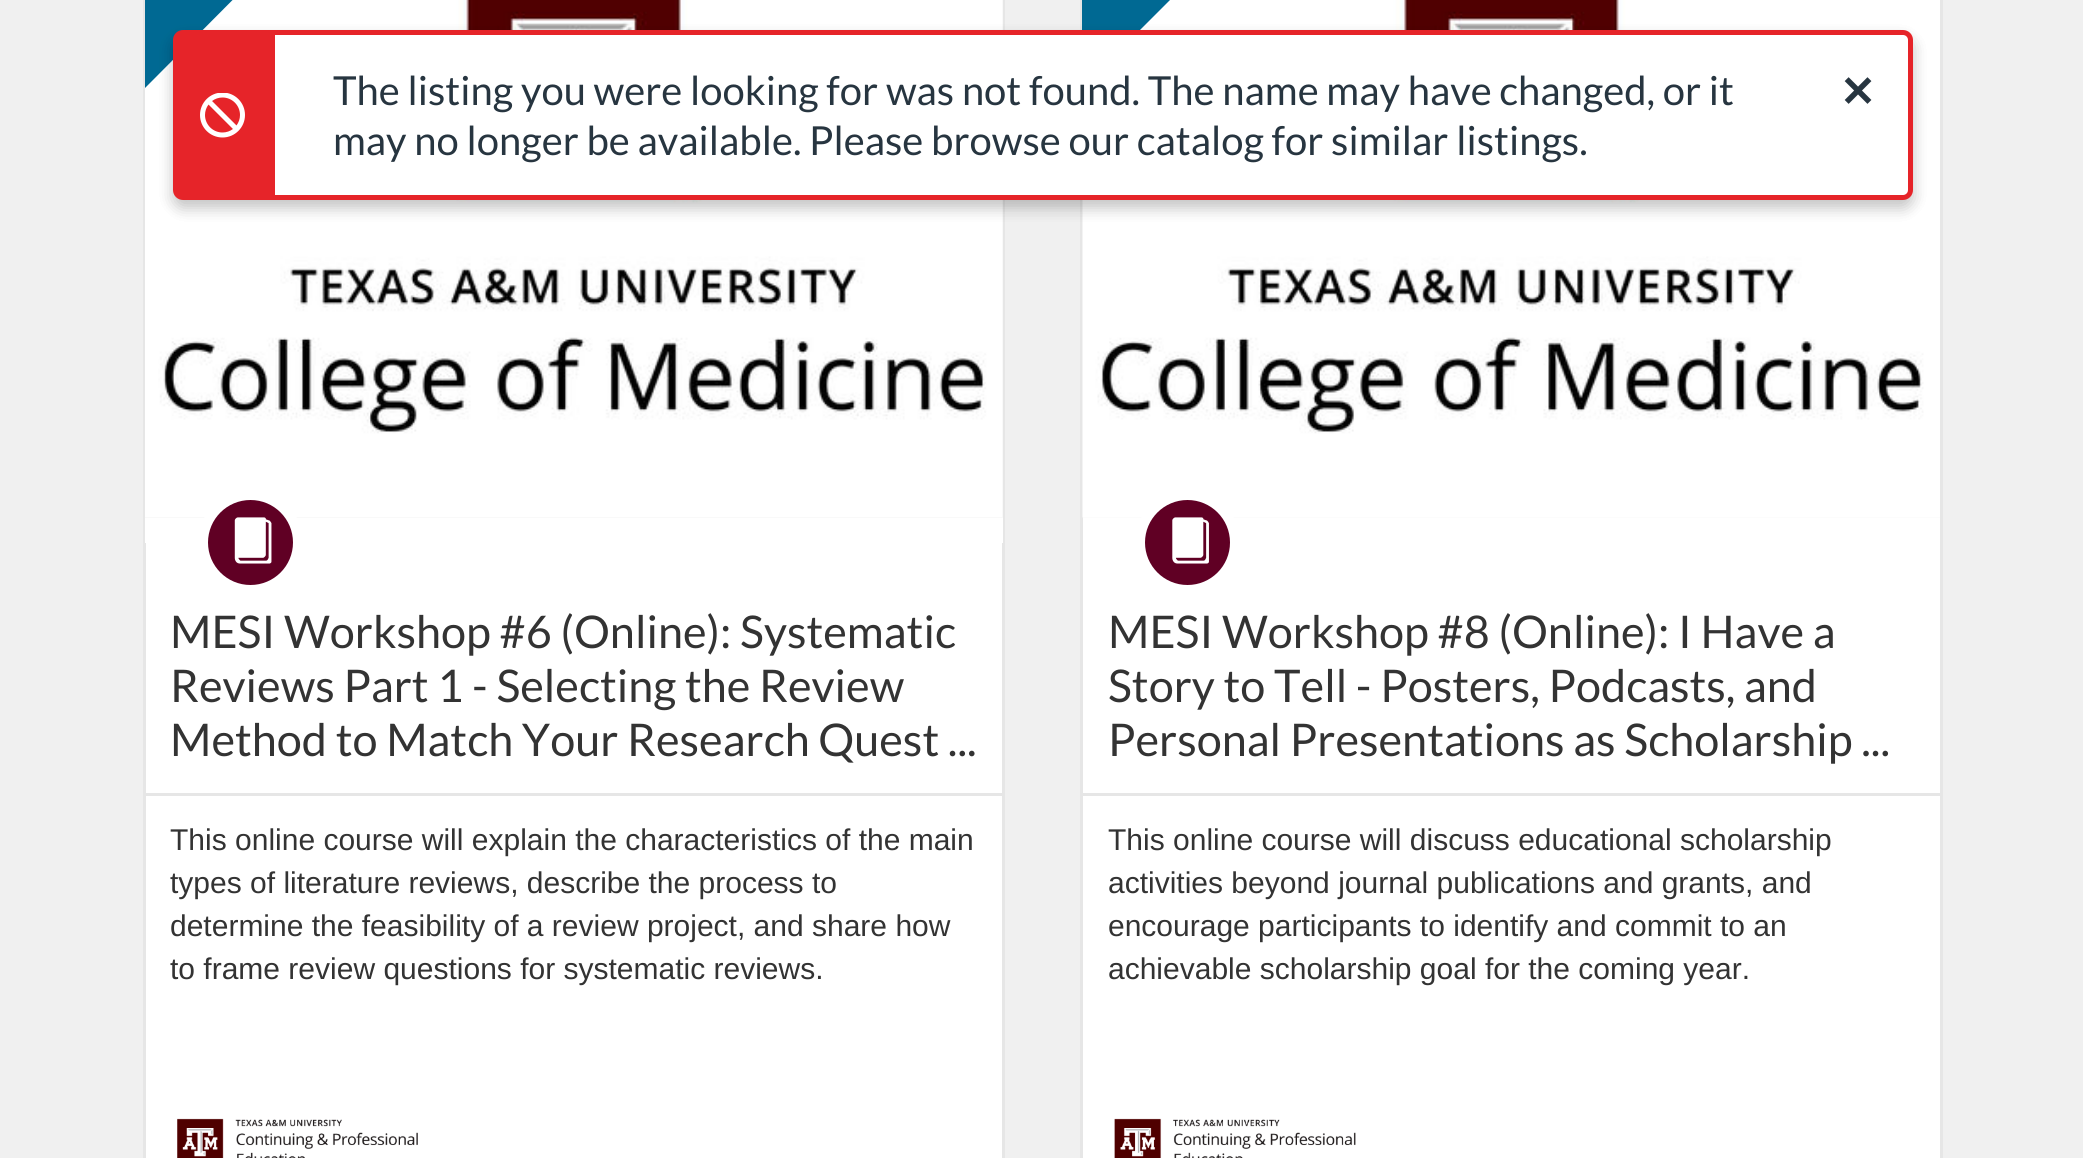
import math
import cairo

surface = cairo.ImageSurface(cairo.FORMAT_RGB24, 2083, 1158)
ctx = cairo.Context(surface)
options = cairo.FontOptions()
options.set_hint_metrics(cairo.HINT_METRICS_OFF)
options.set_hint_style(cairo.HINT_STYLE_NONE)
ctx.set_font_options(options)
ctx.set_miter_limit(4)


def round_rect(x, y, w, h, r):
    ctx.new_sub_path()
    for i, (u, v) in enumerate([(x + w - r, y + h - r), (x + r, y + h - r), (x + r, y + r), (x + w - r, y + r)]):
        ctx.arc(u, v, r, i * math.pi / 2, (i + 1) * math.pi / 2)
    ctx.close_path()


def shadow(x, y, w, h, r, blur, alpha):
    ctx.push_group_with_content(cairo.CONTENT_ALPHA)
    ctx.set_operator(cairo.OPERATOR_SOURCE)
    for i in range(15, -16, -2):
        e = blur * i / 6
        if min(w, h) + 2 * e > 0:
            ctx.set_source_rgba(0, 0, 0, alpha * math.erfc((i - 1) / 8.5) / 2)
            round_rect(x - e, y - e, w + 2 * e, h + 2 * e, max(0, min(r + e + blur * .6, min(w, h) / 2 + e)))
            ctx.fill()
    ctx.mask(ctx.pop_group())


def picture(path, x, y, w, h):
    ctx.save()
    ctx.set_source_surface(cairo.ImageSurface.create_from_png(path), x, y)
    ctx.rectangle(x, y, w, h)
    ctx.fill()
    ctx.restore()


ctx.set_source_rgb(0.941, 0.941, 0.941)
ctx.paint()
ctx.set_source_rgb(1, 1, 1)
ctx.rectangle(146, 543, 856, 615)
ctx.fill()
ctx.rectangle(144.5, -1.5, 859, 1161)
ctx.set_source_rgb(0.902, 0.902, 0.902)
ctx.set_line_width(3)
ctx.stroke()
ctx.set_source_rgb(0.973, 0.973, 0.973)
ctx.rectangle(145, 0, 858, 518)
ctx.fill()
picture("img3.png", 145, 0, 857, 517)
ctx.set_source_rgb(0, 0.412, 0.576)
ctx.new_path()
ctx.move_to(145, -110)
ctx.line_to(342, -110)
ctx.line_to(145, 88)
ctx.close_path()
ctx.fill()
ctx.set_source_rgb(1, 1, 1)
ctx.rectangle(1083, 518, 857, 640)
ctx.fill()
ctx.rectangle(1081.5, -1.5, 860, 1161)
ctx.set_source_rgb(0.902, 0.902, 0.902)
ctx.stroke()
ctx.set_source_rgb(0.973, 0.973, 0.973)
ctx.rectangle(1083, 517, 857, 1)
ctx.fill()
picture("img6.png", 1082, 0, 858, 518)
ctx.set_source_rgb(0, 0.412, 0.576)
ctx.new_path()
ctx.move_to(1082, -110)
ctx.line_to(1280, -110)
ctx.line_to(1082, 88)
ctx.close_path()
ctx.fill()
ctx.set_source_rgb(0, 0, 0)
shadow(173, 38, 1740, 170, 10, 7.5, 0.15)
shadow(173, 38, 1740, 170, 10, 7.5, 0.1)
ctx.set_source_rgb(1, 1, 1)
round_rect(175.5, 32.5, 1735, 165, 7.5)
ctx.fill_preserve()
ctx.set_source_rgb(0.902, 0.141, 0.161)
ctx.set_line_width(5)
ctx.stroke()
ctx.new_path()
ctx.move_to(185, 33)
ctx.line_to(275, 33)
ctx.line_to(275, 198)
ctx.line_to(185, 198)
ctx.curve_to(179.5, 198, 175, 193.5, 175, 188)
ctx.line_to(175, 43)
ctx.curve_to(175, 37.5, 179.5, 33, 185, 33)
ctx.close_path()
ctx.fill()
picture("img1.png", 200, 93, 45, 45)
ctx.select_font_face("Lato")
ctx.set_font_size(40)
ctx.set_source_rgb(0.153, 0.208, 0.251)
ctx.move_to(333, 105)
ctx.show_text("The listing you were looking for was not found. The name may have changed, or it")
ctx.move_to(333, 155)
ctx.show_text("may no longer be available. Please browse our catalog for similar listings.")
picture("img2.png", 1844, 77, 28, 27)
ctx.set_source_rgb(1, 1, 1)
ctx.rectangle(145, 518, 858, 25)
ctx.fill()
ctx.set_source_rgb(0.376, 0, 0.141)
ctx.arc(250.5, 542.5, 47.5, 0, 2 * math.pi)
ctx.fill_preserve()
ctx.set_source_rgb(1, 1, 1)
ctx.set_line_width(10)
ctx.stroke()
picture("img4.png", 234, 517, 38, 47)
ctx.set_font_size(45)
ctx.set_source_rgb(0.2, 0.2, 0.2)
ctx.move_to(170, 648)
ctx.show_text("MESI Workshop #6 (Online): Systematic")
ctx.move_to(170, 702)
ctx.show_text("Reviews Part 1 - Selecting the Review")
ctx.move_to(170, 756)
ctx.show_text("Method to Match Your Research Quest ...")
ctx.set_source_rgb(0.902, 0.902, 0.902)
ctx.rectangle(145, 793, 858, 3)
ctx.fill()
ctx.select_font_face("Liberation Sans")
ctx.set_font_size(30)
ctx.set_source_rgb(0.2, 0.2, 0.2)
ctx.move_to(170, 850)
ctx.show_text("This online course will explain the characteristics of the main")
ctx.move_to(170, 893)
ctx.show_text("types of literature reviews, describe the process to")
ctx.move_to(170, 936)
ctx.show_text("determine the feasibility of a review project, and share how")
ctx.move_to(170, 979)
ctx.show_text("to frame review questions for systematic reviews.")
picture("img5.png", 177, 1118, 241, 40)
ctx.set_source_rgb(0.376, 0, 0.141)
ctx.arc(1187.5, 542.5, 47.5, 0, 2 * math.pi)
ctx.fill_preserve()
ctx.set_source_rgb(1, 1, 1)
ctx.stroke()
picture("img7.png", 1172, 517, 37, 47)
ctx.select_font_face("Lato")
ctx.set_font_size(45)
ctx.set_source_rgb(0.2, 0.2, 0.2)
ctx.move_to(1108, 648)
ctx.show_text("MESI Workshop #8 (Online): I Have a")
ctx.move_to(1108, 702)
ctx.show_text("Story to Tell - Posters, Podcasts, and")
ctx.move_to(1108, 756)
ctx.show_text("Personal Presentations as Scholarship ...")
ctx.set_source_rgb(0.902, 0.902, 0.902)
ctx.rectangle(1083, 793, 857, 3)
ctx.fill()
ctx.select_font_face("Liberation Sans")
ctx.set_font_size(30)
ctx.set_source_rgb(0.2, 0.2, 0.2)
ctx.move_to(1108, 850)
ctx.show_text("This online course will discuss educational scholarship")
ctx.move_to(1108, 893)
ctx.show_text("activities beyond journal publications and grants, and")
ctx.move_to(1108, 936)
ctx.show_text("encourage participants to identify and commit to an")
ctx.move_to(1108, 979)
ctx.show_text("achievable scholarship goal for the coming year.")
picture("img8.png", 1114, 1118, 242, 40)
surface.write_to_png("page.png")
